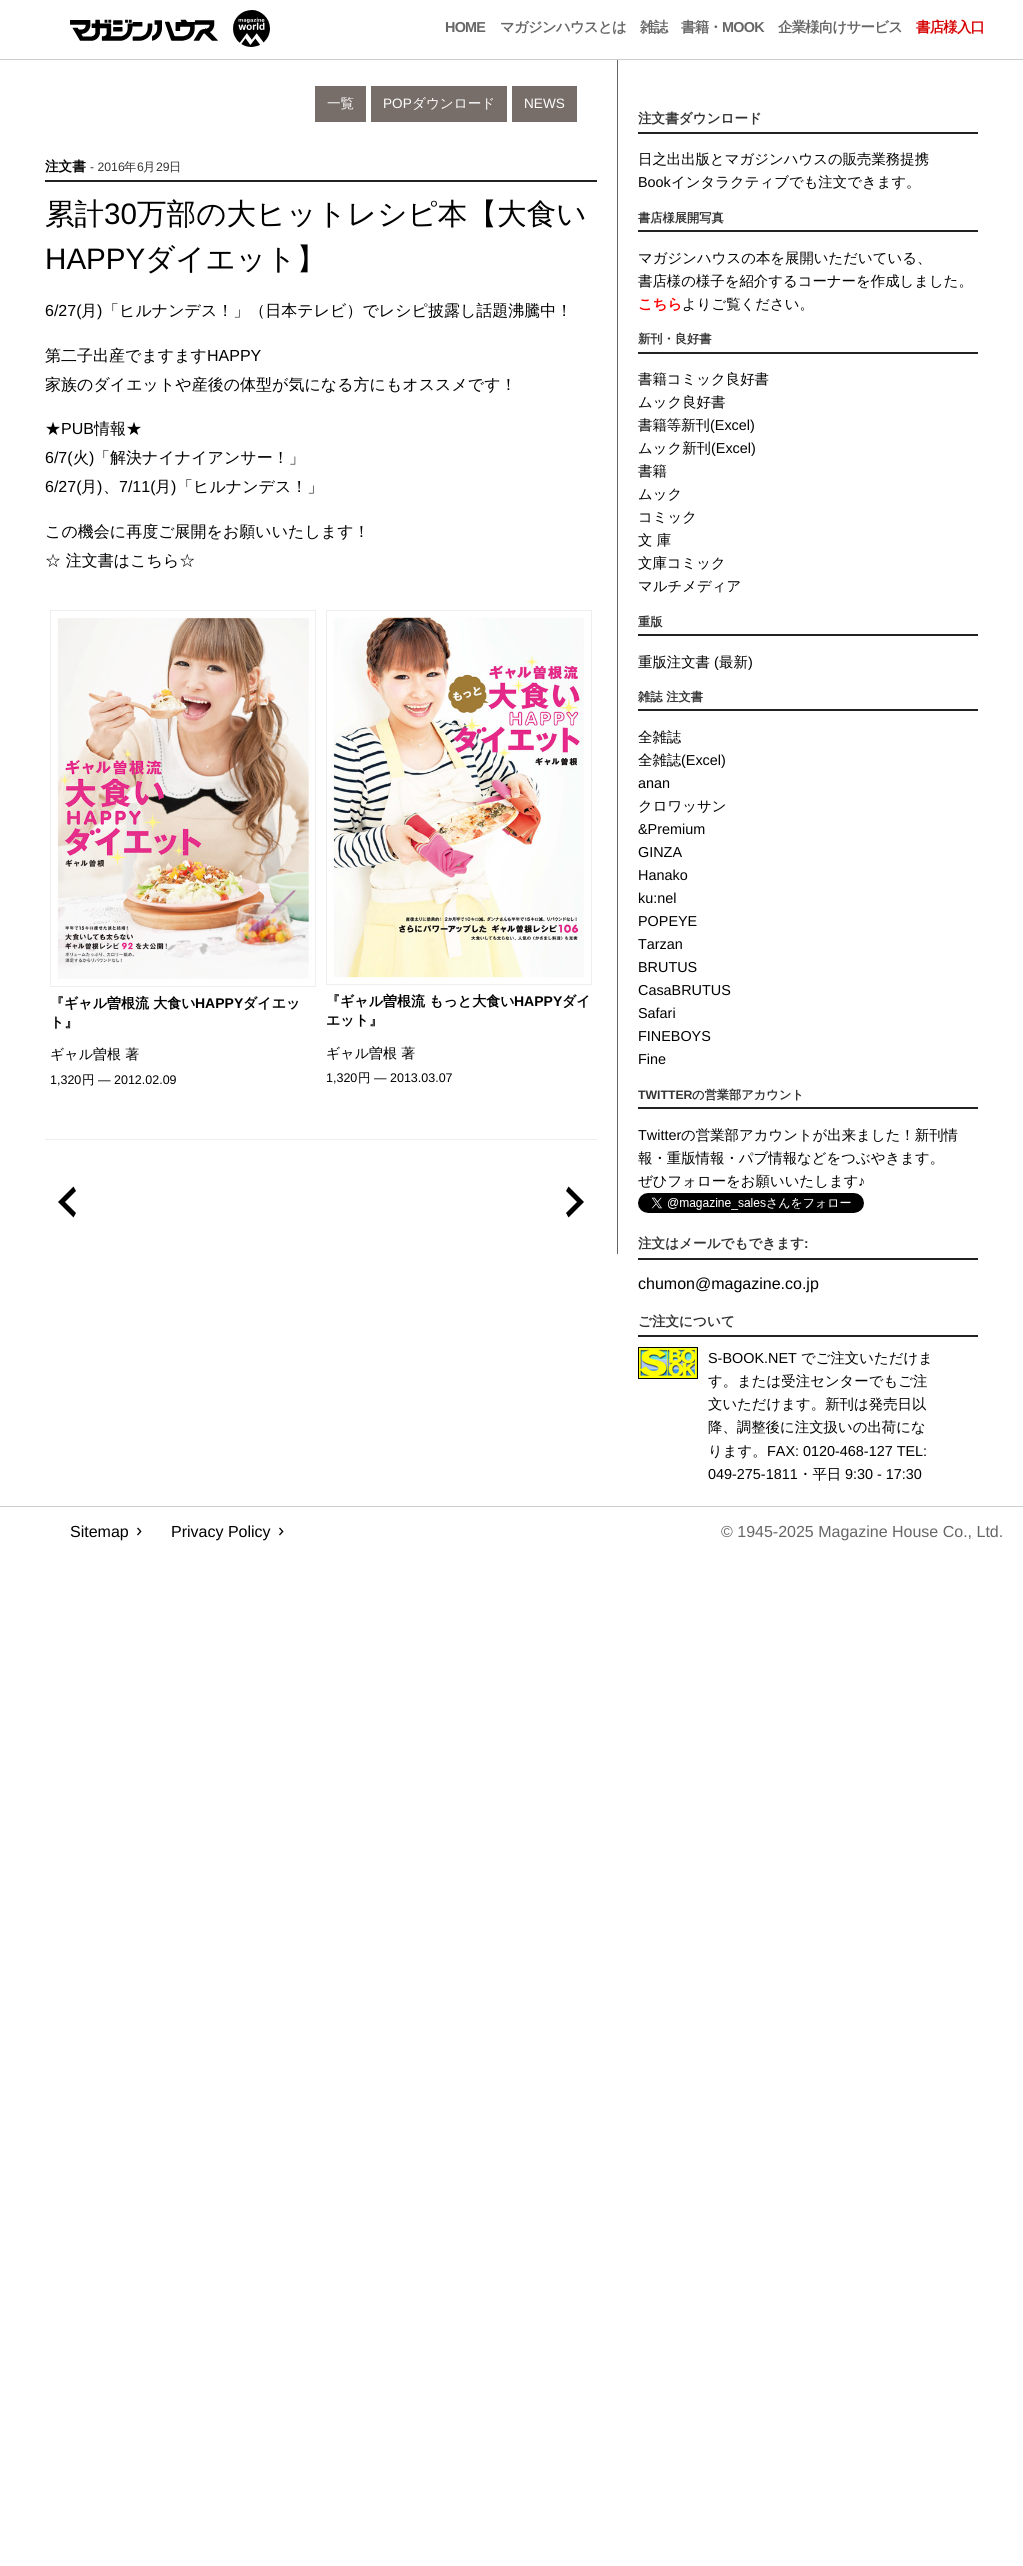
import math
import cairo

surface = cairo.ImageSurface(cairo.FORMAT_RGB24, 1023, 2566)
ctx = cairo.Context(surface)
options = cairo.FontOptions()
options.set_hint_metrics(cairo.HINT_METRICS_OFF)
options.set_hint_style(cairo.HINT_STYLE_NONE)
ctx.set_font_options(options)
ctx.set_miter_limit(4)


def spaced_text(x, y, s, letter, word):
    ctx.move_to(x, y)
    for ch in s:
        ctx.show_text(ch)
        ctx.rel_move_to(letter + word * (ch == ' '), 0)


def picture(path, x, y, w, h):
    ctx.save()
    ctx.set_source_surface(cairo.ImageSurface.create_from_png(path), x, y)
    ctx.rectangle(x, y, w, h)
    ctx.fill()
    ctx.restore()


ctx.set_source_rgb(1, 1, 1)
ctx.paint()
ctx.set_source_rgb(0.8, 0.8, 0.8)
ctx.rectangle(0, 59, 1023, 1)
ctx.fill()
picture("img1.png", 70, 10, 200, 37)
ctx.select_font_face("Liberation Sans", cairo.FONT_SLANT_NORMAL, cairo.FONT_WEIGHT_BOLD)
ctx.set_font_size(14.4)
ctx.set_source_rgb(0.4, 0.4, 0.4)
spaced_text(445, 32, "HOME", -0.75, 0)
ctx.select_font_face("WenQuanYi Zen Hei", cairo.FONT_SLANT_NORMAL, cairo.FONT_WEIGHT_BOLD)
spaced_text(500, 32, "マガジンハウスとは", -0.75, 0)
spaced_text(640, 32, "雑誌", -0.75, 0)
spaced_text(681, 32, "書籍・", -0.75, 0)
ctx.select_font_face("Liberation Sans", cairo.FONT_SLANT_NORMAL, cairo.FONT_WEIGHT_BOLD)
spaced_text(722, 32, "MOOK", -0.75, 0)
ctx.select_font_face("WenQuanYi Zen Hei", cairo.FONT_SLANT_NORMAL, cairo.FONT_WEIGHT_BOLD)
spaced_text(778, 32, "企業様向けサービス", -0.75, 0)
ctx.set_source_rgb(0.839, 0, 0)
spaced_text(916, 32, "書店様入口", -0.75, 0)
ctx.set_source_rgb(0.4, 0.4, 0.4)
ctx.rectangle(617, 60, 1, 1194)
ctx.fill()
ctx.set_source_rgb(0.467, 0.431, 0.416)
ctx.rectangle(315, 86, 51, 36)
ctx.fill()
ctx.select_font_face("WenQuanYi Zen Hei Medium")
ctx.set_font_size(13.6)
ctx.set_source_rgb(1, 1, 1)
ctx.move_to(327, 108)
ctx.show_text("一覧")
ctx.set_source_rgb(0.467, 0.431, 0.416)
ctx.rectangle(371, 86, 136, 36)
ctx.fill()
ctx.select_font_face("Liberation Sans")
ctx.set_source_rgb(1, 1, 1)
ctx.move_to(383, 108)
ctx.show_text("POP")
ctx.select_font_face("WenQuanYi Zen Hei Medium")
ctx.move_to(412, 108)
ctx.show_text("ダウンロード")
ctx.set_source_rgb(0.467, 0.431, 0.416)
ctx.rectangle(512, 86, 65, 36)
ctx.fill()
ctx.select_font_face("Liberation Sans")
ctx.set_source_rgb(1, 1, 1)
ctx.move_to(524, 108)
ctx.show_text("NEWS")
ctx.set_source_rgb(0.933, 0.933, 0.933)
ctx.rectangle(45, 1139, 552, 1)
ctx.fill()
ctx.set_source_rgb(0.133, 0.133, 0.133)
ctx.rectangle(45, 180, 552, 2)
ctx.fill()
ctx.select_font_face("WenQuanYi Zen Hei", cairo.FONT_SLANT_NORMAL, cairo.FONT_WEIGHT_BOLD)
ctx.set_source_rgb(0, 0, 0)
ctx.move_to(45, 171)
ctx.show_text("注文書")
ctx.select_font_face("Liberation Sans")
ctx.set_font_size(12.25)
ctx.set_source_rgb(0.2, 0.2, 0.2)
ctx.move_to(90, 171)
ctx.show_text("- 2016")
ctx.select_font_face("WenQuanYi Zen Hei Medium")
ctx.move_to(124, 171)
ctx.show_text("年")
ctx.select_font_face("Liberation Sans")
ctx.move_to(137, 171)
ctx.show_text("6")
ctx.select_font_face("WenQuanYi Zen Hei Medium")
ctx.move_to(143, 171)
ctx.show_text("月")
ctx.select_font_face("Liberation Sans")
ctx.move_to(156, 171)
ctx.show_text("29")
ctx.select_font_face("WenQuanYi Zen Hei Medium")
ctx.move_to(169, 171)
ctx.show_text("日")
ctx.set_font_size(29.6)
ctx.set_source_rgb(0, 0, 0)
ctx.move_to(45, 224)
ctx.show_text("累計")
ctx.select_font_face("Liberation Sans")
ctx.move_to(104, 224)
ctx.show_text("30")
ctx.select_font_face("WenQuanYi Zen Hei Medium")
ctx.move_to(137, 224)
ctx.show_text("万部の大ヒットレシピ本【大食い")
ctx.select_font_face("Liberation Sans")
ctx.move_to(45, 269)
ctx.show_text("HAPPY")
ctx.select_font_face("WenQuanYi Zen Hei Medium")
ctx.move_to(145, 269)
ctx.show_text("ダイエット】")
ctx.select_font_face("Liberation Sans")
ctx.set_font_size(16)
ctx.move_to(45, 316)
ctx.show_text("6/27(")
ctx.select_font_face("WenQuanYi Zen Hei Medium")
ctx.move_to(81, 316)
ctx.show_text("月")
ctx.select_font_face("Liberation Sans")
ctx.move_to(97, 316)
ctx.show_text(")")
ctx.select_font_face("WenQuanYi Zen Hei Medium")
ctx.move_to(103, 316)
ctx.show_text("「ヒルナンデス！」（日本テレビ）でレシピ披露し話題沸騰中！")
ctx.move_to(45, 361)
ctx.show_text("第二子出産でますます")
ctx.select_font_face("Liberation Sans")
ctx.move_to(207, 361)
ctx.show_text("HAPPY")
ctx.select_font_face("WenQuanYi Zen Hei Medium")
ctx.move_to(45, 390)
ctx.show_text("家族のダイエットや産後の体型が気になる方にもオススメです！")
ctx.move_to(45, 434)
ctx.show_text("★")
ctx.select_font_face("Liberation Sans")
ctx.move_to(61, 434)
ctx.show_text("PUB")
ctx.select_font_face("WenQuanYi Zen Hei Medium")
ctx.move_to(94, 434)
ctx.show_text("情報★")
ctx.select_font_face("Liberation Sans")
ctx.move_to(45, 463)
ctx.show_text("6/7(")
ctx.select_font_face("WenQuanYi Zen Hei Medium")
ctx.move_to(73, 463)
ctx.show_text("火")
ctx.select_font_face("Liberation Sans")
ctx.move_to(89, 463)
ctx.show_text(")")
ctx.select_font_face("WenQuanYi Zen Hei Medium")
ctx.move_to(94, 463)
ctx.show_text("「解決ナイナイアンサー！」")
ctx.select_font_face("Liberation Sans")
ctx.move_to(45, 492)
ctx.show_text("6/27(")
ctx.select_font_face("WenQuanYi Zen Hei Medium")
ctx.move_to(81, 492)
ctx.show_text("月")
ctx.select_font_face("Liberation Sans")
ctx.move_to(97, 492)
ctx.show_text(")")
ctx.select_font_face("WenQuanYi Zen Hei Medium")
ctx.move_to(103, 492)
ctx.show_text("、")
ctx.select_font_face("Liberation Sans")
ctx.move_to(119, 492)
ctx.show_text("7/11(")
ctx.select_font_face("WenQuanYi Zen Hei Medium")
ctx.move_to(155, 492)
ctx.show_text("月")
ctx.select_font_face("Liberation Sans")
ctx.move_to(171, 492)
ctx.show_text(")")
ctx.select_font_face("WenQuanYi Zen Hei Medium")
ctx.move_to(177, 492)
ctx.show_text("「ヒルナンデス！」")
ctx.move_to(45, 537)
ctx.show_text("この機会に再度ご展開をお願いいたします！")
ctx.move_to(45, 566)
ctx.show_text("☆ 注文書はこちら☆")
ctx.rectangle(50.5, 610.5, 265, 376)
ctx.set_source_rgb(0.933, 0.933, 0.933)
ctx.set_line_width(1)
ctx.stroke()
picture("img2.png", 57, 617, 255, 362)
ctx.select_font_face("WenQuanYi Zen Hei", cairo.FONT_SLANT_NORMAL, cairo.FONT_WEIGHT_BOLD)
ctx.set_font_size(14)
ctx.set_source_rgb(0, 0, 0)
ctx.move_to(50, 1008)
ctx.show_text("『ギャル曽根流 大食い")
ctx.select_font_face("Liberation Sans", cairo.FONT_SLANT_NORMAL, cairo.FONT_WEIGHT_BOLD)
ctx.move_to(195, 1008)
ctx.show_text("HAPPY")
ctx.select_font_face("WenQuanYi Zen Hei", cairo.FONT_SLANT_NORMAL, cairo.FONT_WEIGHT_BOLD)
ctx.move_to(243, 1008)
ctx.show_text("ダイエッ")
ctx.move_to(50, 1027)
ctx.show_text("ト』")
ctx.select_font_face("WenQuanYi Zen Hei Medium")
ctx.move_to(50, 1059)
ctx.show_text("ギャル曽根 著")
ctx.select_font_face("Liberation Sans")
ctx.set_font_size(12.5)
ctx.move_to(50, 1084)
ctx.show_text("1,320")
ctx.select_font_face("WenQuanYi Zen Hei Medium")
ctx.move_to(82, 1084)
ctx.show_text("円")
ctx.select_font_face("Liberation Sans")
ctx.move_to(98, 1084)
ctx.show_text("— 2012.02.09")
ctx.rectangle(326.5, 610.5, 265, 374)
ctx.set_source_rgb(0.933, 0.933, 0.933)
ctx.stroke()
picture("img3.png", 332, 616, 252, 362)
ctx.select_font_face("WenQuanYi Zen Hei", cairo.FONT_SLANT_NORMAL, cairo.FONT_WEIGHT_BOLD)
ctx.set_font_size(14)
ctx.set_source_rgb(0, 0, 0)
ctx.move_to(326, 1006)
ctx.show_text("『ギャル曽根流 もっと大食い")
ctx.select_font_face("Liberation Sans", cairo.FONT_SLANT_NORMAL, cairo.FONT_WEIGHT_BOLD)
ctx.move_to(514, 1006)
ctx.show_text("HAPPY")
ctx.select_font_face("WenQuanYi Zen Hei", cairo.FONT_SLANT_NORMAL, cairo.FONT_WEIGHT_BOLD)
ctx.move_to(562, 1006)
ctx.show_text("ダイ")
ctx.move_to(326, 1025)
ctx.show_text("エット』")
ctx.select_font_face("WenQuanYi Zen Hei Medium")
ctx.move_to(326, 1058)
ctx.show_text("ギャル曽根 著")
ctx.select_font_face("Liberation Sans")
ctx.set_font_size(12.5)
ctx.move_to(326, 1082)
ctx.show_text("1,320")
ctx.select_font_face("WenQuanYi Zen Hei Medium")
ctx.move_to(358, 1082)
ctx.show_text("円")
ctx.select_font_face("Liberation Sans")
ctx.move_to(374, 1082)
ctx.show_text("— 2013.03.07")
ctx.new_path()
ctx.move_to(76, 1191)
ctx.line_to(65, 1202)
ctx.line_to(76, 1213)
ctx.line_to(73.5, 1217.5)
ctx.line_to(58, 1202)
ctx.line_to(73.5, 1186.5)
ctx.close_path()
ctx.fill()
ctx.new_path()
ctx.move_to(566, 1213)
ctx.line_to(577, 1202)
ctx.line_to(566, 1191)
ctx.line_to(568.5, 1186.5)
ctx.line_to(584, 1202)
ctx.line_to(568.5, 1217.5)
ctx.close_path()
ctx.fill()
ctx.set_source_rgb(0.133, 0.133, 0.133)
ctx.rectangle(638, 132, 340, 2)
ctx.fill()
ctx.select_font_face("WenQuanYi Zen Hei", cairo.FONT_SLANT_NORMAL, cairo.FONT_WEIGHT_BOLD)
ctx.set_font_size(13.6)
ctx.set_source_rgb(0.2, 0.2, 0.2)
ctx.move_to(638, 123)
ctx.show_text("注文書ダウンロード")
ctx.select_font_face("WenQuanYi Zen Hei Medium")
ctx.set_font_size(14.4)
ctx.set_source_rgb(0, 0, 0)
ctx.move_to(638, 164)
ctx.show_text("日之出出版とマガジンハウスの販売業務提携")
ctx.select_font_face("Liberation Sans")
ctx.move_to(638, 187)
ctx.show_text("Book")
ctx.select_font_face("WenQuanYi Zen Hei Medium")
ctx.move_to(671, 187)
ctx.show_text("インタラクティブでも注文できます。")
ctx.set_source_rgb(0.133, 0.133, 0.133)
ctx.rectangle(638, 230, 340, 2)
ctx.fill()
ctx.select_font_face("WenQuanYi Zen Hei", cairo.FONT_SLANT_NORMAL, cairo.FONT_WEIGHT_BOLD)
ctx.set_font_size(12.25)
ctx.set_source_rgb(0.2, 0.2, 0.2)
ctx.move_to(638, 222)
ctx.show_text("書店様展開写真")
ctx.select_font_face("WenQuanYi Zen Hei Medium")
ctx.set_font_size(14.4)
ctx.set_source_rgb(0, 0, 0)
ctx.move_to(638, 263)
ctx.show_text("マガジンハウスの本を展開いただいている、")
ctx.move_to(638, 286)
ctx.show_text("書店様の様子を紹介するコーナーを作成しました。")
ctx.select_font_face("WenQuanYi Zen Hei", cairo.FONT_SLANT_NORMAL, cairo.FONT_WEIGHT_BOLD)
ctx.set_source_rgb(1, 0, 0)
ctx.move_to(638, 309)
ctx.show_text("こちら")
ctx.select_font_face("WenQuanYi Zen Hei Medium")
ctx.set_source_rgb(0, 0, 0)
ctx.move_to(682, 309)
ctx.show_text("よりご覧ください。")
ctx.set_source_rgb(0.133, 0.133, 0.133)
ctx.rectangle(638, 352, 340, 2)
ctx.fill()
ctx.select_font_face("WenQuanYi Zen Hei", cairo.FONT_SLANT_NORMAL, cairo.FONT_WEIGHT_BOLD)
ctx.set_font_size(12.25)
ctx.set_source_rgb(0.2, 0.2, 0.2)
ctx.move_to(638, 343)
ctx.show_text("新刊・良好書")
ctx.select_font_face("WenQuanYi Zen Hei Medium")
ctx.set_font_size(14.4)
ctx.set_source_rgb(0, 0, 0)
ctx.move_to(638, 384)
ctx.show_text("書籍コミック良好書")
ctx.move_to(638, 407)
ctx.show_text("ムック良好書")
ctx.move_to(638, 430)
ctx.show_text("書籍等新刊")
ctx.select_font_face("Liberation Sans")
ctx.move_to(710, 430)
ctx.show_text("(Excel)")
ctx.select_font_face("WenQuanYi Zen Hei Medium")
ctx.move_to(638, 453)
ctx.show_text("ムック新刊")
ctx.select_font_face("Liberation Sans")
ctx.move_to(711, 453)
ctx.show_text("(Excel)")
ctx.select_font_face("WenQuanYi Zen Hei Medium")
ctx.move_to(638, 476)
ctx.show_text("書籍")
ctx.move_to(638, 499)
ctx.show_text("ムック")
ctx.move_to(638, 522)
ctx.show_text("コミック")
ctx.move_to(638, 545)
ctx.show_text("文 庫")
ctx.move_to(638, 568)
ctx.show_text("文庫コミック")
ctx.move_to(638, 591)
ctx.show_text("マルチメディア")
ctx.set_source_rgb(0.133, 0.133, 0.133)
ctx.rectangle(638, 634, 340, 2)
ctx.fill()
ctx.select_font_face("WenQuanYi Zen Hei", cairo.FONT_SLANT_NORMAL, cairo.FONT_WEIGHT_BOLD)
ctx.set_font_size(12.25)
ctx.set_source_rgb(0.2, 0.2, 0.2)
ctx.move_to(638, 626)
ctx.show_text("重版")
ctx.select_font_face("WenQuanYi Zen Hei Medium")
ctx.set_font_size(14.4)
ctx.set_source_rgb(0, 0, 0)
ctx.move_to(638, 667)
ctx.show_text("重版注文書")
ctx.select_font_face("Liberation Sans")
ctx.move_to(714, 667)
ctx.show_text("(")
ctx.select_font_face("WenQuanYi Zen Hei Medium")
ctx.move_to(719, 667)
ctx.show_text("最新")
ctx.select_font_face("Liberation Sans")
ctx.move_to(748, 667)
ctx.show_text(")")
ctx.set_source_rgb(0.133, 0.133, 0.133)
ctx.rectangle(638, 709, 340, 2)
ctx.fill()
ctx.select_font_face("WenQuanYi Zen Hei", cairo.FONT_SLANT_NORMAL, cairo.FONT_WEIGHT_BOLD)
ctx.set_font_size(12.25)
ctx.set_source_rgb(0.2, 0.2, 0.2)
ctx.move_to(638, 701)
ctx.show_text("雑誌 注文書")
ctx.select_font_face("WenQuanYi Zen Hei Medium")
ctx.set_font_size(14.4)
ctx.set_source_rgb(0, 0, 0)
ctx.move_to(638, 742)
ctx.show_text("全雑誌")
ctx.move_to(638, 765)
ctx.show_text("全雑誌")
ctx.select_font_face("Liberation Sans")
ctx.move_to(681, 765)
ctx.show_text("(Excel)")
ctx.move_to(638, 788)
ctx.show_text("anan")
ctx.select_font_face("WenQuanYi Zen Hei Medium")
ctx.move_to(638, 811)
ctx.show_text("クロワッサン")
ctx.select_font_face("Liberation Sans")
ctx.move_to(638, 834)
ctx.show_text("&Premium")
ctx.move_to(638, 857)
ctx.show_text("GINZA")
ctx.move_to(638, 880)
ctx.show_text("Hanako")
ctx.move_to(638, 903)
ctx.show_text("ku:nel")
ctx.move_to(638, 926)
ctx.show_text("POPEYE")
ctx.move_to(638, 949)
ctx.show_text("Tarzan")
ctx.move_to(638, 972)
ctx.show_text("BRUTUS")
ctx.move_to(638, 995)
ctx.show_text("CasaBRUTUS")
ctx.move_to(638, 1018)
ctx.show_text("Safari")
ctx.move_to(638, 1041)
ctx.show_text("FINEBOYS")
ctx.move_to(638, 1064)
ctx.show_text("Fine")
ctx.set_source_rgb(0.133, 0.133, 0.133)
ctx.rectangle(638, 1107, 340, 2)
ctx.fill()
ctx.select_font_face("Liberation Sans", cairo.FONT_SLANT_NORMAL, cairo.FONT_WEIGHT_BOLD)
ctx.set_font_size(12.25)
ctx.set_source_rgb(0.2, 0.2, 0.2)
ctx.move_to(638, 1099)
ctx.show_text("TWITTER")
ctx.select_font_face("WenQuanYi Zen Hei", cairo.FONT_SLANT_NORMAL, cairo.FONT_WEIGHT_BOLD)
ctx.move_to(692, 1099)
ctx.show_text("の営業部アカウント")
ctx.select_font_face("Liberation Sans")
ctx.set_font_size(14.4)
ctx.set_source_rgb(0, 0, 0)
ctx.move_to(638, 1140)
ctx.show_text("Twitter")
ctx.select_font_face("WenQuanYi Zen Hei Medium")
ctx.move_to(681, 1140)
ctx.show_text("の営業部アカウントが出来ました！新刊情")
ctx.move_to(638, 1163)
ctx.show_text("報・重版情報・パブ情報などをつぶやきます。")
ctx.move_to(638, 1186)
ctx.show_text("ぜひフォローをお願いいたします")
ctx.select_font_face("Liberation Sans")
ctx.move_to(858, 1186)
ctx.show_text("♪")
picture("img4.png", 638, 1193, 226, 20)
ctx.set_source_rgb(0.133, 0.133, 0.133)
ctx.rectangle(638, 1258, 340, 2)
ctx.fill()
ctx.select_font_face("WenQuanYi Zen Hei", cairo.FONT_SLANT_NORMAL, cairo.FONT_WEIGHT_BOLD)
ctx.set_font_size(13.6)
ctx.set_source_rgb(0.2, 0.2, 0.2)
ctx.move_to(638, 1248)
ctx.show_text("注文はメールでもできます")
ctx.select_font_face("Liberation Sans", cairo.FONT_SLANT_NORMAL, cairo.FONT_WEIGHT_BOLD)
ctx.move_to(804, 1248)
ctx.show_text(":")
ctx.select_font_face("Liberation Sans")
ctx.set_font_size(16)
ctx.set_source_rgb(0, 0, 0)
ctx.move_to(638, 1289)
ctx.show_text("chumon@magazine.co.jp")
ctx.set_source_rgb(0.133, 0.133, 0.133)
ctx.rectangle(638, 1335, 340, 2)
ctx.fill()
ctx.select_font_face("WenQuanYi Zen Hei", cairo.FONT_SLANT_NORMAL, cairo.FONT_WEIGHT_BOLD)
ctx.set_font_size(13.6)
ctx.set_source_rgb(0.2, 0.2, 0.2)
ctx.move_to(638, 1326)
ctx.show_text("ご注文について")
picture("img5.png", 638, 1347, 60, 32)
ctx.select_font_face("Liberation Sans")
ctx.set_font_size(14.4)
ctx.set_source_rgb(0, 0, 0)
ctx.move_to(708, 1363)
ctx.show_text("S-BOOK.NET")
ctx.select_font_face("WenQuanYi Zen Hei Medium")
ctx.move_to(801, 1363)
ctx.show_text("でご注文いただけま")
ctx.move_to(708, 1386)
ctx.show_text("す。または受注センターでもご注")
ctx.move_to(708, 1409)
ctx.show_text("文いただけます。新刊は発売日以")
ctx.move_to(708, 1432)
ctx.show_text("降、調整後に注文扱いの出荷にな")
ctx.move_to(708, 1456)
ctx.show_text("ります。")
ctx.select_font_face("Liberation Sans")
ctx.move_to(767, 1456)
ctx.show_text("FAX: 0120-468-127 TEL:")
ctx.move_to(708, 1479)
ctx.show_text("049-275-1811")
ctx.select_font_face("WenQuanYi Zen Hei Medium")
ctx.move_to(798, 1479)
ctx.show_text("・平日")
ctx.select_font_face("Liberation Sans")
ctx.move_to(845, 1479)
ctx.show_text("9:30 - 17:30")
ctx.set_source_rgb(0.8, 0.8, 0.8)
ctx.rectangle(0, 1506, 1023, 1)
ctx.fill()
ctx.set_font_size(16)
ctx.set_source_rgb(0, 0, 0)
ctx.move_to(70, 1537)
ctx.show_text("Sitemap")
picture("img6.png", 137, 1527, 5, 9)
ctx.move_to(171, 1537)
ctx.show_text("Privacy Policy")
picture("img6.png", 279, 1527, 5, 9)
ctx.set_source_rgb(0.4, 0.4, 0.4)
ctx.move_to(721, 1537)
ctx.show_text("© 1945-2025 Magazine House Co., Ltd.")
surface.write_to_png("page.png")
